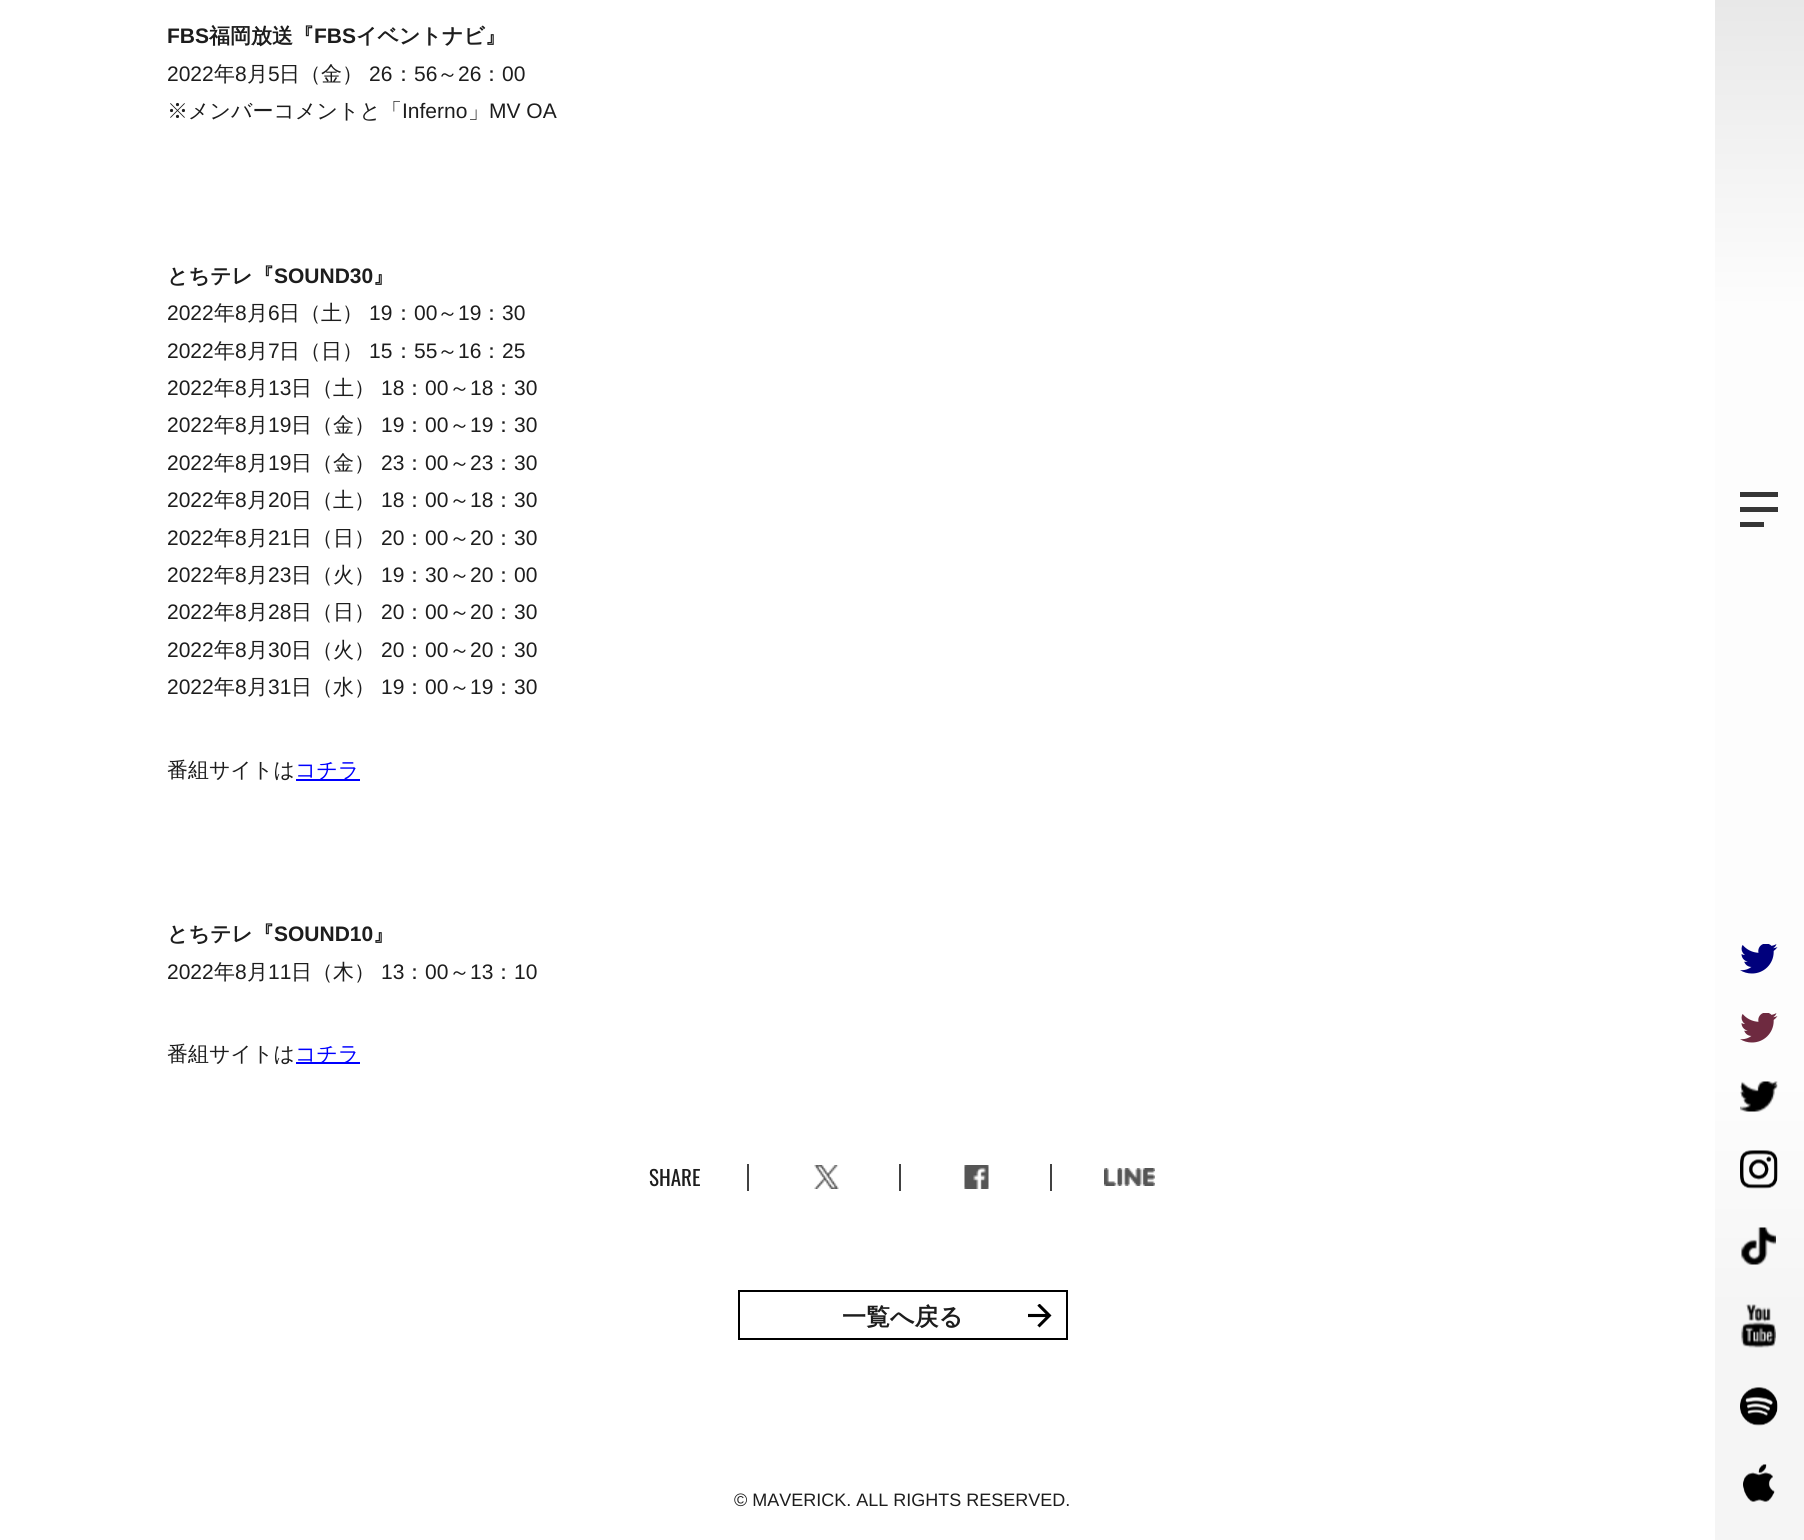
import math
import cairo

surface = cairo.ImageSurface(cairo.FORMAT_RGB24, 1804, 1540)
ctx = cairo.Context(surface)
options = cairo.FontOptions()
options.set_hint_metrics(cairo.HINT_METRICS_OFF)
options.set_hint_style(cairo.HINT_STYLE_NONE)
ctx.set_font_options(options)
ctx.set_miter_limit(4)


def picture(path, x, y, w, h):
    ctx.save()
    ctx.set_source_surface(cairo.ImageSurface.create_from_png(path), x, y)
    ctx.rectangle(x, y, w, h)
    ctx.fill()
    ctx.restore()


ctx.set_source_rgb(1, 1, 1)
ctx.paint()
ctx.select_font_face("Liberation Sans", cairo.FONT_SLANT_NORMAL, cairo.FONT_WEIGHT_BOLD)
ctx.set_font_size(21)
ctx.set_source_rgb(0.114, 0.114, 0.114)
ctx.move_to(167, 43)
ctx.show_text("FBS")
ctx.select_font_face("WenQuanYi Zen Hei", cairo.FONT_SLANT_NORMAL, cairo.FONT_WEIGHT_BOLD)
ctx.move_to(209, 43)
ctx.show_text("福岡放送『")
ctx.select_font_face("Liberation Sans", cairo.FONT_SLANT_NORMAL, cairo.FONT_WEIGHT_BOLD)
ctx.move_to(314, 43)
ctx.show_text("FBS")
ctx.select_font_face("WenQuanYi Zen Hei", cairo.FONT_SLANT_NORMAL, cairo.FONT_WEIGHT_BOLD)
ctx.move_to(356, 43)
ctx.show_text("イベントナビ』")
ctx.select_font_face("Liberation Sans")
ctx.move_to(167, 81)
ctx.show_text("2022")
ctx.select_font_face("WenQuanYi Zen Hei Medium")
ctx.move_to(214, 81)
ctx.show_text("年")
ctx.select_font_face("Liberation Sans")
ctx.move_to(235, 81)
ctx.show_text("8")
ctx.select_font_face("WenQuanYi Zen Hei Medium")
ctx.move_to(247, 81)
ctx.show_text("月")
ctx.select_font_face("Liberation Sans")
ctx.move_to(268, 81)
ctx.show_text("5")
ctx.select_font_face("WenQuanYi Zen Hei Medium")
ctx.move_to(279, 81)
ctx.show_text("日（金）")
ctx.select_font_face("Liberation Sans")
ctx.move_to(369, 81)
ctx.show_text("26")
ctx.select_font_face("WenQuanYi Zen Hei Medium")
ctx.move_to(393, 81)
ctx.show_text("：")
ctx.select_font_face("Liberation Sans")
ctx.move_to(414, 81)
ctx.show_text("56")
ctx.select_font_face("WenQuanYi Zen Hei Medium")
ctx.move_to(437, 81)
ctx.show_text("～")
ctx.select_font_face("Liberation Sans")
ctx.move_to(458, 81)
ctx.show_text("26")
ctx.select_font_face("WenQuanYi Zen Hei Medium")
ctx.move_to(481, 81)
ctx.show_text("：")
ctx.select_font_face("Liberation Sans")
ctx.move_to(502, 81)
ctx.show_text("00")
ctx.select_font_face("WenQuanYi Zen Hei Medium")
ctx.move_to(167, 118)
ctx.show_text("※メンバーコメントと「")
ctx.select_font_face("Liberation Sans")
ctx.move_to(402, 118)
ctx.show_text("Inferno")
ctx.select_font_face("WenQuanYi Zen Hei Medium")
ctx.move_to(468, 118)
ctx.show_text("」")
ctx.select_font_face("Liberation Sans")
ctx.move_to(489, 118)
ctx.show_text("MV OA")
ctx.select_font_face("WenQuanYi Zen Hei", cairo.FONT_SLANT_NORMAL, cairo.FONT_WEIGHT_BOLD)
ctx.move_to(167, 283)
ctx.show_text("とちテレ『")
ctx.select_font_face("Liberation Sans", cairo.FONT_SLANT_NORMAL, cairo.FONT_WEIGHT_BOLD)
ctx.move_to(274, 283)
ctx.show_text("SOUND30")
ctx.select_font_face("WenQuanYi Zen Hei", cairo.FONT_SLANT_NORMAL, cairo.FONT_WEIGHT_BOLD)
ctx.move_to(373, 283)
ctx.show_text("』")
ctx.select_font_face("Liberation Sans")
ctx.move_to(167, 320)
ctx.show_text("2022")
ctx.select_font_face("WenQuanYi Zen Hei Medium")
ctx.move_to(214, 320)
ctx.show_text("年")
ctx.select_font_face("Liberation Sans")
ctx.move_to(235, 320)
ctx.show_text("8")
ctx.select_font_face("WenQuanYi Zen Hei Medium")
ctx.move_to(247, 320)
ctx.show_text("月")
ctx.select_font_face("Liberation Sans")
ctx.move_to(268, 320)
ctx.show_text("6")
ctx.select_font_face("WenQuanYi Zen Hei Medium")
ctx.move_to(279, 320)
ctx.show_text("日（土）")
ctx.select_font_face("Liberation Sans")
ctx.move_to(369, 320)
ctx.show_text("19")
ctx.select_font_face("WenQuanYi Zen Hei Medium")
ctx.move_to(393, 320)
ctx.show_text("：")
ctx.select_font_face("Liberation Sans")
ctx.move_to(414, 320)
ctx.show_text("00")
ctx.select_font_face("WenQuanYi Zen Hei Medium")
ctx.move_to(437, 320)
ctx.show_text("～")
ctx.select_font_face("Liberation Sans")
ctx.move_to(458, 320)
ctx.show_text("19")
ctx.select_font_face("WenQuanYi Zen Hei Medium")
ctx.move_to(481, 320)
ctx.show_text("：")
ctx.select_font_face("Liberation Sans")
ctx.move_to(502, 320)
ctx.show_text("30")
ctx.move_to(167, 358)
ctx.show_text("2022")
ctx.select_font_face("WenQuanYi Zen Hei Medium")
ctx.move_to(214, 358)
ctx.show_text("年")
ctx.select_font_face("Liberation Sans")
ctx.move_to(235, 358)
ctx.show_text("8")
ctx.select_font_face("WenQuanYi Zen Hei Medium")
ctx.move_to(247, 358)
ctx.show_text("月")
ctx.select_font_face("Liberation Sans")
ctx.move_to(268, 358)
ctx.show_text("7")
ctx.select_font_face("WenQuanYi Zen Hei Medium")
ctx.move_to(279, 358)
ctx.show_text("日（日）")
ctx.select_font_face("Liberation Sans")
ctx.move_to(369, 358)
ctx.show_text("15")
ctx.select_font_face("WenQuanYi Zen Hei Medium")
ctx.move_to(393, 358)
ctx.show_text("：")
ctx.select_font_face("Liberation Sans")
ctx.move_to(414, 358)
ctx.show_text("55")
ctx.select_font_face("WenQuanYi Zen Hei Medium")
ctx.move_to(437, 358)
ctx.show_text("～")
ctx.select_font_face("Liberation Sans")
ctx.move_to(458, 358)
ctx.show_text("16")
ctx.select_font_face("WenQuanYi Zen Hei Medium")
ctx.move_to(481, 358)
ctx.show_text("：")
ctx.select_font_face("Liberation Sans")
ctx.move_to(502, 358)
ctx.show_text("25")
ctx.move_to(167, 395)
ctx.show_text("2022")
ctx.select_font_face("WenQuanYi Zen Hei Medium")
ctx.move_to(214, 395)
ctx.show_text("年")
ctx.select_font_face("Liberation Sans")
ctx.move_to(235, 395)
ctx.show_text("8")
ctx.select_font_face("WenQuanYi Zen Hei Medium")
ctx.move_to(247, 395)
ctx.show_text("月")
ctx.select_font_face("Liberation Sans")
ctx.move_to(268, 395)
ctx.show_text("13")
ctx.select_font_face("WenQuanYi Zen Hei Medium")
ctx.move_to(291, 395)
ctx.show_text("日（土）")
ctx.select_font_face("Liberation Sans")
ctx.move_to(381, 395)
ctx.show_text("18")
ctx.select_font_face("WenQuanYi Zen Hei Medium")
ctx.move_to(404, 395)
ctx.show_text("：")
ctx.select_font_face("Liberation Sans")
ctx.move_to(425, 395)
ctx.show_text("00")
ctx.select_font_face("WenQuanYi Zen Hei Medium")
ctx.move_to(449, 395)
ctx.show_text("～")
ctx.select_font_face("Liberation Sans")
ctx.move_to(470, 395)
ctx.show_text("18")
ctx.select_font_face("WenQuanYi Zen Hei Medium")
ctx.move_to(493, 395)
ctx.show_text("：")
ctx.select_font_face("Liberation Sans")
ctx.move_to(514, 395)
ctx.show_text("30")
ctx.move_to(167, 432)
ctx.show_text("2022")
ctx.select_font_face("WenQuanYi Zen Hei Medium")
ctx.move_to(214, 432)
ctx.show_text("年")
ctx.select_font_face("Liberation Sans")
ctx.move_to(235, 432)
ctx.show_text("8")
ctx.select_font_face("WenQuanYi Zen Hei Medium")
ctx.move_to(247, 432)
ctx.show_text("月")
ctx.select_font_face("Liberation Sans")
ctx.move_to(268, 432)
ctx.show_text("19")
ctx.select_font_face("WenQuanYi Zen Hei Medium")
ctx.move_to(291, 432)
ctx.show_text("日（金）")
ctx.select_font_face("Liberation Sans")
ctx.move_to(381, 432)
ctx.show_text("19")
ctx.select_font_face("WenQuanYi Zen Hei Medium")
ctx.move_to(404, 432)
ctx.show_text("：")
ctx.select_font_face("Liberation Sans")
ctx.move_to(425, 432)
ctx.show_text("00")
ctx.select_font_face("WenQuanYi Zen Hei Medium")
ctx.move_to(449, 432)
ctx.show_text("～")
ctx.select_font_face("Liberation Sans")
ctx.move_to(470, 432)
ctx.show_text("19")
ctx.select_font_face("WenQuanYi Zen Hei Medium")
ctx.move_to(493, 432)
ctx.show_text("：")
ctx.select_font_face("Liberation Sans")
ctx.move_to(514, 432)
ctx.show_text("30")
ctx.move_to(167, 470)
ctx.show_text("2022")
ctx.select_font_face("WenQuanYi Zen Hei Medium")
ctx.move_to(214, 470)
ctx.show_text("年")
ctx.select_font_face("Liberation Sans")
ctx.move_to(235, 470)
ctx.show_text("8")
ctx.select_font_face("WenQuanYi Zen Hei Medium")
ctx.move_to(247, 470)
ctx.show_text("月")
ctx.select_font_face("Liberation Sans")
ctx.move_to(268, 470)
ctx.show_text("19")
ctx.select_font_face("WenQuanYi Zen Hei Medium")
ctx.move_to(291, 470)
ctx.show_text("日（金）")
ctx.select_font_face("Liberation Sans")
ctx.move_to(381, 470)
ctx.show_text("23")
ctx.select_font_face("WenQuanYi Zen Hei Medium")
ctx.move_to(404, 470)
ctx.show_text("：")
ctx.select_font_face("Liberation Sans")
ctx.move_to(425, 470)
ctx.show_text("00")
ctx.select_font_face("WenQuanYi Zen Hei Medium")
ctx.move_to(449, 470)
ctx.show_text("～")
ctx.select_font_face("Liberation Sans")
ctx.move_to(470, 470)
ctx.show_text("23")
ctx.select_font_face("WenQuanYi Zen Hei Medium")
ctx.move_to(493, 470)
ctx.show_text("：")
ctx.select_font_face("Liberation Sans")
ctx.move_to(514, 470)
ctx.show_text("30")
ctx.move_to(167, 507)
ctx.show_text("2022")
ctx.select_font_face("WenQuanYi Zen Hei Medium")
ctx.move_to(214, 507)
ctx.show_text("年")
ctx.select_font_face("Liberation Sans")
ctx.move_to(235, 507)
ctx.show_text("8")
ctx.select_font_face("WenQuanYi Zen Hei Medium")
ctx.move_to(247, 507)
ctx.show_text("月")
ctx.select_font_face("Liberation Sans")
ctx.move_to(268, 507)
ctx.show_text("20")
ctx.select_font_face("WenQuanYi Zen Hei Medium")
ctx.move_to(291, 507)
ctx.show_text("日（土）")
ctx.select_font_face("Liberation Sans")
ctx.move_to(381, 507)
ctx.show_text("18")
ctx.select_font_face("WenQuanYi Zen Hei Medium")
ctx.move_to(404, 507)
ctx.show_text("：")
ctx.select_font_face("Liberation Sans")
ctx.move_to(425, 507)
ctx.show_text("00")
ctx.select_font_face("WenQuanYi Zen Hei Medium")
ctx.move_to(449, 507)
ctx.show_text("～")
ctx.select_font_face("Liberation Sans")
ctx.move_to(470, 507)
ctx.show_text("18")
ctx.select_font_face("WenQuanYi Zen Hei Medium")
ctx.move_to(493, 507)
ctx.show_text("：")
ctx.select_font_face("Liberation Sans")
ctx.move_to(514, 507)
ctx.show_text("30")
ctx.move_to(167, 545)
ctx.show_text("2022")
ctx.select_font_face("WenQuanYi Zen Hei Medium")
ctx.move_to(214, 545)
ctx.show_text("年")
ctx.select_font_face("Liberation Sans")
ctx.move_to(235, 545)
ctx.show_text("8")
ctx.select_font_face("WenQuanYi Zen Hei Medium")
ctx.move_to(247, 545)
ctx.show_text("月")
ctx.select_font_face("Liberation Sans")
ctx.move_to(268, 545)
ctx.show_text("21")
ctx.select_font_face("WenQuanYi Zen Hei Medium")
ctx.move_to(291, 545)
ctx.show_text("日（日）")
ctx.select_font_face("Liberation Sans")
ctx.move_to(381, 545)
ctx.show_text("20")
ctx.select_font_face("WenQuanYi Zen Hei Medium")
ctx.move_to(404, 545)
ctx.show_text("：")
ctx.select_font_face("Liberation Sans")
ctx.move_to(425, 545)
ctx.show_text("00")
ctx.select_font_face("WenQuanYi Zen Hei Medium")
ctx.move_to(449, 545)
ctx.show_text("～")
ctx.select_font_face("Liberation Sans")
ctx.move_to(470, 545)
ctx.show_text("20")
ctx.select_font_face("WenQuanYi Zen Hei Medium")
ctx.move_to(493, 545)
ctx.show_text("：")
ctx.select_font_face("Liberation Sans")
ctx.move_to(514, 545)
ctx.show_text("30")
ctx.move_to(167, 582)
ctx.show_text("2022")
ctx.select_font_face("WenQuanYi Zen Hei Medium")
ctx.move_to(214, 582)
ctx.show_text("年")
ctx.select_font_face("Liberation Sans")
ctx.move_to(235, 582)
ctx.show_text("8")
ctx.select_font_face("WenQuanYi Zen Hei Medium")
ctx.move_to(247, 582)
ctx.show_text("月")
ctx.select_font_face("Liberation Sans")
ctx.move_to(268, 582)
ctx.show_text("23")
ctx.select_font_face("WenQuanYi Zen Hei Medium")
ctx.move_to(291, 582)
ctx.show_text("日（火）")
ctx.select_font_face("Liberation Sans")
ctx.move_to(381, 582)
ctx.show_text("19")
ctx.select_font_face("WenQuanYi Zen Hei Medium")
ctx.move_to(404, 582)
ctx.show_text("：")
ctx.select_font_face("Liberation Sans")
ctx.move_to(425, 582)
ctx.show_text("30")
ctx.select_font_face("WenQuanYi Zen Hei Medium")
ctx.move_to(449, 582)
ctx.show_text("～")
ctx.select_font_face("Liberation Sans")
ctx.move_to(470, 582)
ctx.show_text("20")
ctx.select_font_face("WenQuanYi Zen Hei Medium")
ctx.move_to(493, 582)
ctx.show_text("：")
ctx.select_font_face("Liberation Sans")
ctx.move_to(514, 582)
ctx.show_text("00")
ctx.move_to(167, 619)
ctx.show_text("2022")
ctx.select_font_face("WenQuanYi Zen Hei Medium")
ctx.move_to(214, 619)
ctx.show_text("年")
ctx.select_font_face("Liberation Sans")
ctx.move_to(235, 619)
ctx.show_text("8")
ctx.select_font_face("WenQuanYi Zen Hei Medium")
ctx.move_to(247, 619)
ctx.show_text("月")
ctx.select_font_face("Liberation Sans")
ctx.move_to(268, 619)
ctx.show_text("28")
ctx.select_font_face("WenQuanYi Zen Hei Medium")
ctx.move_to(291, 619)
ctx.show_text("日（日）")
ctx.select_font_face("Liberation Sans")
ctx.move_to(381, 619)
ctx.show_text("20")
ctx.select_font_face("WenQuanYi Zen Hei Medium")
ctx.move_to(404, 619)
ctx.show_text("：")
ctx.select_font_face("Liberation Sans")
ctx.move_to(425, 619)
ctx.show_text("00")
ctx.select_font_face("WenQuanYi Zen Hei Medium")
ctx.move_to(449, 619)
ctx.show_text("～")
ctx.select_font_face("Liberation Sans")
ctx.move_to(470, 619)
ctx.show_text("20")
ctx.select_font_face("WenQuanYi Zen Hei Medium")
ctx.move_to(493, 619)
ctx.show_text("：")
ctx.select_font_face("Liberation Sans")
ctx.move_to(514, 619)
ctx.show_text("30")
ctx.move_to(167, 657)
ctx.show_text("2022")
ctx.select_font_face("WenQuanYi Zen Hei Medium")
ctx.move_to(214, 657)
ctx.show_text("年")
ctx.select_font_face("Liberation Sans")
ctx.move_to(235, 657)
ctx.show_text("8")
ctx.select_font_face("WenQuanYi Zen Hei Medium")
ctx.move_to(247, 657)
ctx.show_text("月")
ctx.select_font_face("Liberation Sans")
ctx.move_to(268, 657)
ctx.show_text("30")
ctx.select_font_face("WenQuanYi Zen Hei Medium")
ctx.move_to(291, 657)
ctx.show_text("日（火）")
ctx.select_font_face("Liberation Sans")
ctx.move_to(381, 657)
ctx.show_text("20")
ctx.select_font_face("WenQuanYi Zen Hei Medium")
ctx.move_to(404, 657)
ctx.show_text("：")
ctx.select_font_face("Liberation Sans")
ctx.move_to(425, 657)
ctx.show_text("00")
ctx.select_font_face("WenQuanYi Zen Hei Medium")
ctx.move_to(449, 657)
ctx.show_text("～")
ctx.select_font_face("Liberation Sans")
ctx.move_to(470, 657)
ctx.show_text("20")
ctx.select_font_face("WenQuanYi Zen Hei Medium")
ctx.move_to(493, 657)
ctx.show_text("：")
ctx.select_font_face("Liberation Sans")
ctx.move_to(514, 657)
ctx.show_text("30")
ctx.move_to(167, 694)
ctx.show_text("2022")
ctx.select_font_face("WenQuanYi Zen Hei Medium")
ctx.move_to(214, 694)
ctx.show_text("年")
ctx.select_font_face("Liberation Sans")
ctx.move_to(235, 694)
ctx.show_text("8")
ctx.select_font_face("WenQuanYi Zen Hei Medium")
ctx.move_to(247, 694)
ctx.show_text("月")
ctx.select_font_face("Liberation Sans")
ctx.move_to(268, 694)
ctx.show_text("31")
ctx.select_font_face("WenQuanYi Zen Hei Medium")
ctx.move_to(291, 694)
ctx.show_text("日（水）")
ctx.select_font_face("Liberation Sans")
ctx.move_to(381, 694)
ctx.show_text("19")
ctx.select_font_face("WenQuanYi Zen Hei Medium")
ctx.move_to(404, 694)
ctx.show_text("：")
ctx.select_font_face("Liberation Sans")
ctx.move_to(425, 694)
ctx.show_text("00")
ctx.select_font_face("WenQuanYi Zen Hei Medium")
ctx.move_to(449, 694)
ctx.show_text("～")
ctx.select_font_face("Liberation Sans")
ctx.move_to(470, 694)
ctx.show_text("19")
ctx.select_font_face("WenQuanYi Zen Hei Medium")
ctx.move_to(493, 694)
ctx.show_text("：")
ctx.select_font_face("Liberation Sans")
ctx.move_to(514, 694)
ctx.show_text("30")
ctx.select_font_face("WenQuanYi Zen Hei Medium")
ctx.move_to(167, 777)
ctx.show_text("番組サイトは")
ctx.set_source_rgb(0, 0, 1)
ctx.rectangle(296, 779, 64, 2)
ctx.fill()
ctx.move_to(295, 777)
ctx.show_text("コチラ")
ctx.select_font_face("WenQuanYi Zen Hei", cairo.FONT_SLANT_NORMAL, cairo.FONT_WEIGHT_BOLD)
ctx.set_source_rgb(0.114, 0.114, 0.114)
ctx.move_to(167, 941)
ctx.show_text("とちテレ『")
ctx.select_font_face("Liberation Sans", cairo.FONT_SLANT_NORMAL, cairo.FONT_WEIGHT_BOLD)
ctx.move_to(274, 941)
ctx.show_text("SOUND10")
ctx.select_font_face("WenQuanYi Zen Hei", cairo.FONT_SLANT_NORMAL, cairo.FONT_WEIGHT_BOLD)
ctx.move_to(373, 941)
ctx.show_text("』")
ctx.select_font_face("Liberation Sans")
ctx.move_to(167, 979)
ctx.show_text("2022")
ctx.select_font_face("WenQuanYi Zen Hei Medium")
ctx.move_to(214, 979)
ctx.show_text("年")
ctx.select_font_face("Liberation Sans")
ctx.move_to(235, 979)
ctx.show_text("8")
ctx.select_font_face("WenQuanYi Zen Hei Medium")
ctx.move_to(247, 979)
ctx.show_text("月")
ctx.select_font_face("Liberation Sans")
ctx.move_to(268, 979)
ctx.show_text("11")
ctx.select_font_face("WenQuanYi Zen Hei Medium")
ctx.move_to(291, 979)
ctx.show_text("日（木）")
ctx.select_font_face("Liberation Sans")
ctx.move_to(381, 979)
ctx.show_text("13")
ctx.select_font_face("WenQuanYi Zen Hei Medium")
ctx.move_to(404, 979)
ctx.show_text("：")
ctx.select_font_face("Liberation Sans")
ctx.move_to(425, 979)
ctx.show_text("00")
ctx.select_font_face("WenQuanYi Zen Hei Medium")
ctx.move_to(449, 979)
ctx.show_text("～")
ctx.select_font_face("Liberation Sans")
ctx.move_to(470, 979)
ctx.show_text("13")
ctx.select_font_face("WenQuanYi Zen Hei Medium")
ctx.move_to(493, 979)
ctx.show_text("：")
ctx.select_font_face("Liberation Sans")
ctx.move_to(514, 979)
ctx.show_text("10")
ctx.select_font_face("WenQuanYi Zen Hei Medium")
ctx.move_to(167, 1061)
ctx.show_text("番組サイトは")
ctx.set_source_rgb(0, 0, 1)
ctx.rectangle(296, 1062, 64, 2)
ctx.fill()
ctx.move_to(295, 1061)
ctx.show_text("コチラ")
ctx.set_source_rgb(0.255, 0.255, 0.255)
ctx.rectangle(747, 1164, 2, 27)
ctx.fill()
ctx.select_font_face("Oswald")
ctx.set_source_rgb(0.114, 0.114, 0.114)
ctx.move_to(649, 1186)
ctx.show_text("SHARE")
ctx.set_source_rgb(0.255, 0.255, 0.255)
ctx.rectangle(899, 1164, 2, 27)
ctx.fill()
picture("img1.png", 814, 1165, 25, 24)
ctx.rectangle(1050, 1164, 2, 27)
ctx.fill()
picture("img2.png", 964, 1165, 25, 24)
picture("img3.png", 1104, 1168, 51, 18)
ctx.rectangle(739, 1291, 328, 48)
ctx.set_source_rgb(0, 0, 0)
ctx.stroke()
ctx.select_font_face("WenQuanYi Zen Hei", cairo.FONT_SLANT_NORMAL, cairo.FONT_WEIGHT_BOLD)
ctx.set_font_size(24)
ctx.set_source_rgb(0.114, 0.114, 0.114)
ctx.move_to(842, 1325)
ctx.show_text("一覧へ戻る")
picture("img4.png", 1028, 1304, 24, 24)
gradient = cairo.LinearGradient(1760, 0, 1760, 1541)
gradient.add_color_stop_rgba(0, 0.91, 0.91, 0.91, 1)
gradient.add_color_stop_rgba(0.2, 0.992, 0.992, 0.992, 1)
gradient.add_color_stop_rgba(0.7, 0.992, 0.992, 0.992, 1)
gradient.add_color_stop_rgba(0.85, 0.961, 0.961, 0.961, 1)
ctx.set_source(gradient)
ctx.rectangle(1715, 0, 89, 1540)
ctx.fill()
ctx.set_source_rgb(0.212, 0.212, 0.212)
ctx.rectangle(1740, 492, 38, 5)
ctx.fill()
ctx.rectangle(1740, 507, 38, 5)
ctx.fill()
ctx.rectangle(1740, 522, 24, 5)
ctx.fill()
picture("img5.png", 1740, 944, 38, 30)
picture("img6.png", 1740, 1013, 38, 30)
picture("img7.png", 1740, 1081, 38, 31)
picture("img8.png", 1740, 1150, 38, 39)
picture("img9.png", 1741, 1227, 35, 38)
picture("img10.png", 1741, 1304, 35, 44)
picture("img11.png", 1740, 1387, 38, 39)
picture("img12.png", 1743, 1464, 32, 38)
ctx.select_font_face("Liberation Sans")
ctx.set_font_size(18)
ctx.set_source_rgb(0.114, 0.114, 0.114)
ctx.move_to(734, 1506)
ctx.show_text("© MAVERICK. ALL RIGHTS RESERVED.")
surface.write_to_png("page.png")
